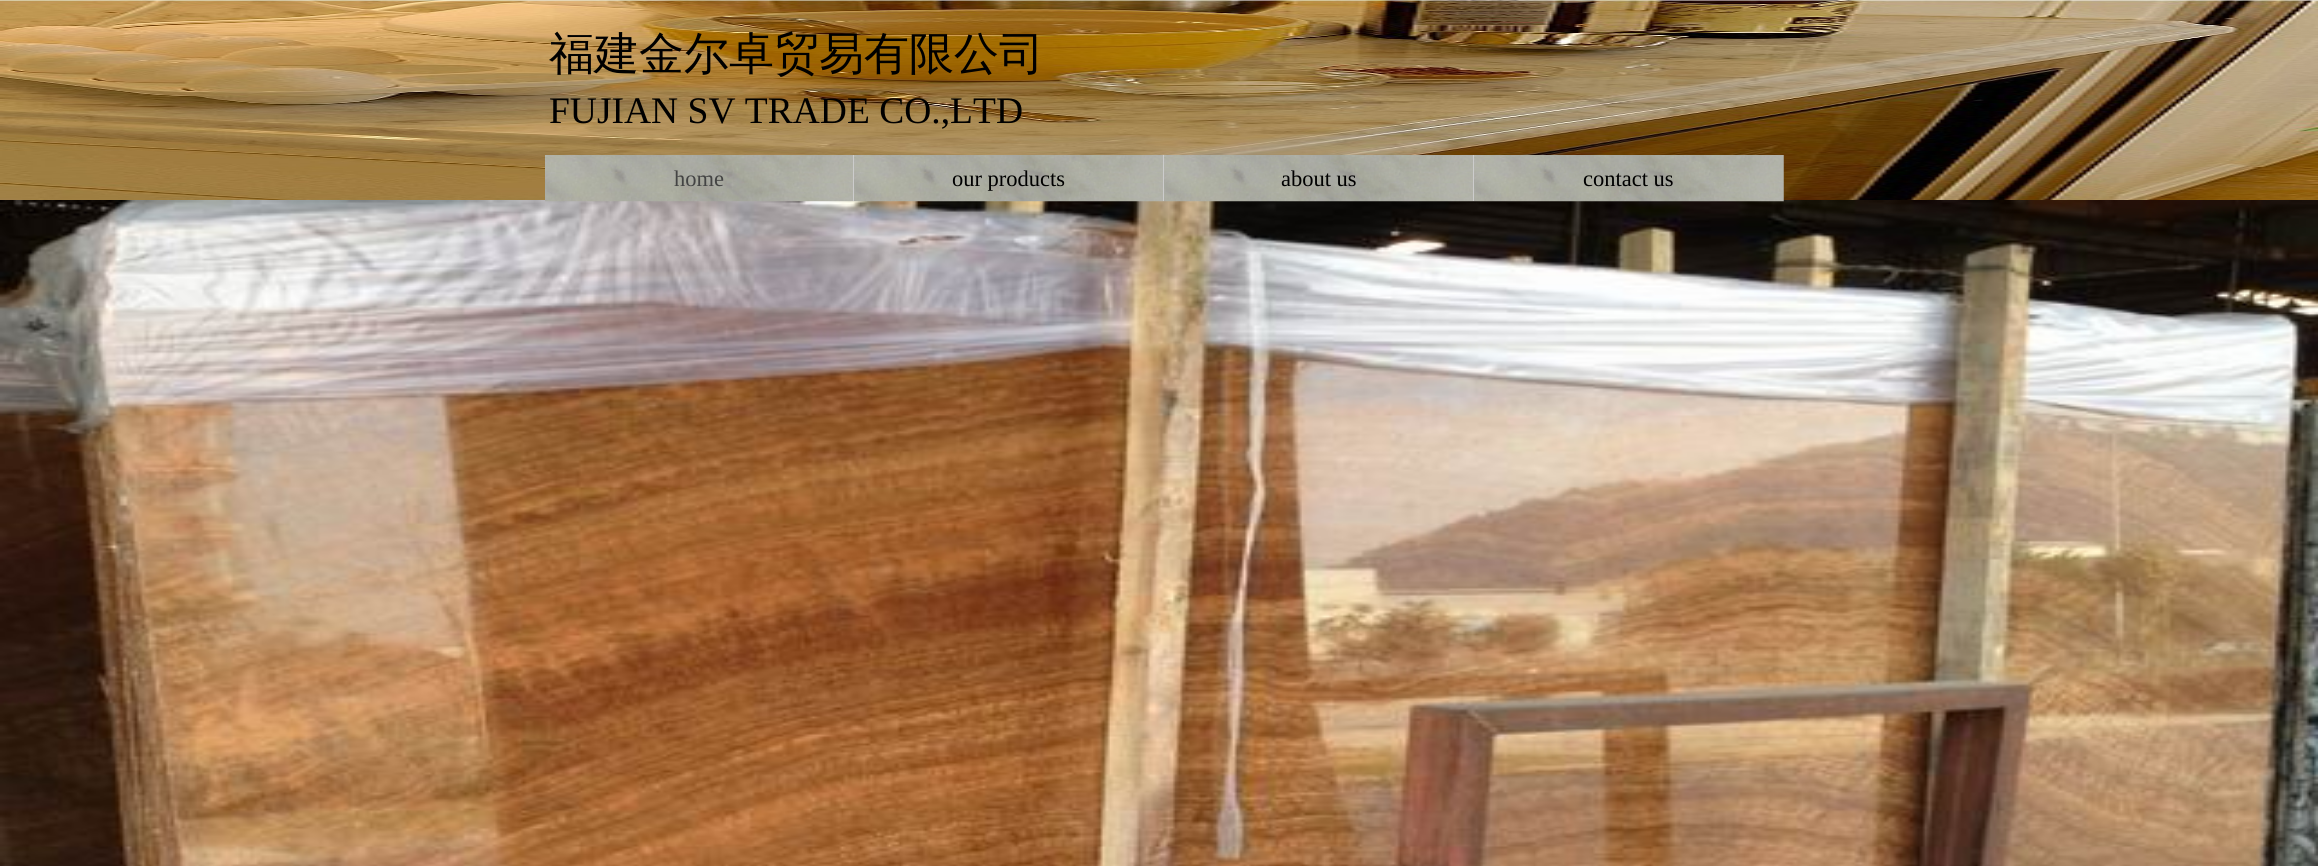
import math
import cairo

surface = cairo.ImageSurface(cairo.FORMAT_RGB24, 2318, 866)
ctx = cairo.Context(surface)
options = cairo.FontOptions()
options.set_hint_metrics(cairo.HINT_METRICS_OFF)
options.set_hint_style(cairo.HINT_STYLE_NONE)
ctx.set_font_options(options)
ctx.set_miter_limit(4)


def picture(path, x, y, w, h):
    ctx.save()
    ctx.set_source_surface(cairo.ImageSurface.create_from_png(path), x, y)
    ctx.rectangle(x, y, w, h)
    ctx.fill()
    ctx.restore()


ctx.set_source_rgb(1, 1, 1)
ctx.paint()
picture("img1.png", 0, 0, 2318, 200)
ctx.select_font_face("WenQuanYi Zen Hei Medium")
ctx.set_font_size(45)
ctx.set_source_rgb(0, 0, 0)
ctx.move_to(549, 69)
ctx.show_text("福建金尔卓贸易有限公司")
ctx.select_font_face("Liberation Serif")
ctx.set_font_size(37.5)
ctx.move_to(549, 123)
ctx.show_text("FUJIAN SV TRADE CO.,LTD")
picture("img6.png", 0, 200, 2318, 666)
picture("img2.png", 545, 155, 309, 47)
ctx.set_font_size(22.5)
ctx.set_source_rgb(0.267, 0.267, 0.267)
ctx.move_to(674, 186)
ctx.show_text("home")
picture("img3.png", 853, 155, 311, 47)
ctx.set_source_rgb(0.8, 0.8, 0.8)
ctx.rectangle(853, 155, 1, 46)
ctx.fill()
ctx.set_source_rgb(0, 0, 0)
ctx.move_to(952, 186)
ctx.show_text("our products")
picture("img4.png", 1163, 155, 311, 47)
ctx.set_source_rgb(0.8, 0.8, 0.8)
ctx.rectangle(1163, 155, 1, 46)
ctx.fill()
ctx.set_source_rgb(0, 0, 0)
ctx.move_to(1281, 186)
ctx.show_text("about us")
picture("img5.png", 1473, 155, 311, 47)
ctx.set_source_rgb(0.8, 0.8, 0.8)
ctx.rectangle(1473, 155, 1, 46)
ctx.fill()
ctx.set_source_rgb(0, 0, 0)
ctx.move_to(1583, 186)
ctx.show_text("contact us")
surface.write_to_png("page.png")
